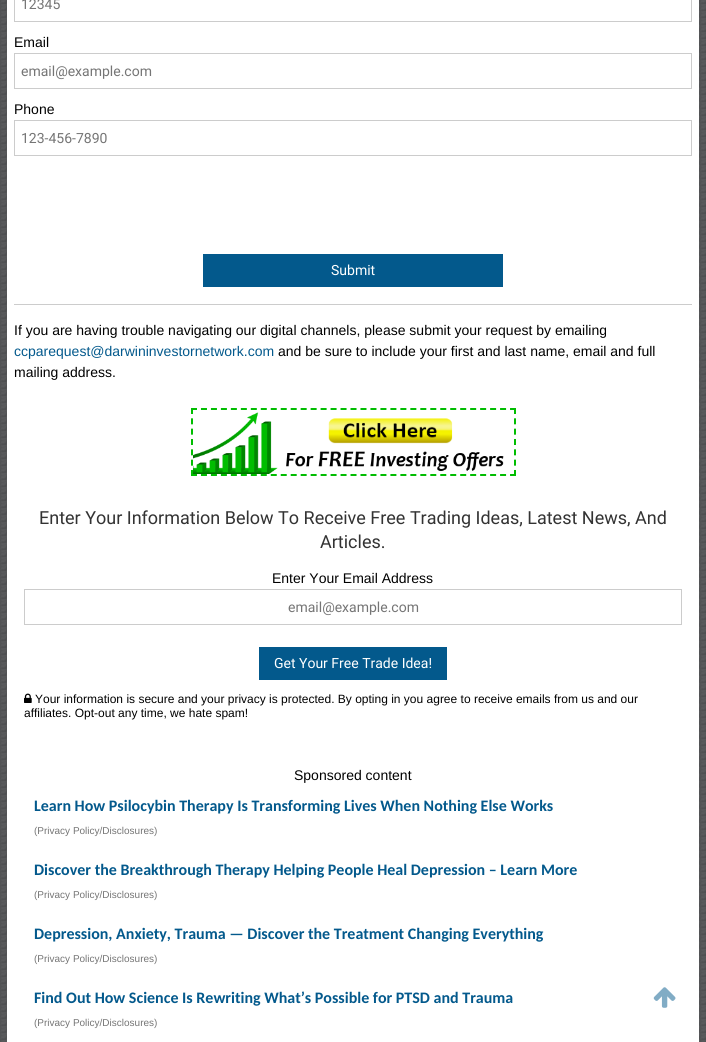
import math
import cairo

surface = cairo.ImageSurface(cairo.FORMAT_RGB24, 706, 1042)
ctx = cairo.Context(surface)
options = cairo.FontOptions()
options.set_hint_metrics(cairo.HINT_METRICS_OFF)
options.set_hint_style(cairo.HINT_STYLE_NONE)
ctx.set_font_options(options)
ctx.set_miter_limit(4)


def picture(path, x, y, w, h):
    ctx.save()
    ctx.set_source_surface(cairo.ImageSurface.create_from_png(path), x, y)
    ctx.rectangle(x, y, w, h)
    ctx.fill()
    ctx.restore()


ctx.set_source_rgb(1, 1, 1)
ctx.paint()
picture("img1.png", 0, 0, 706, 1042)
ctx.set_source_rgb(1, 1, 1)
ctx.rectangle(7, 0, 692, 1042)
ctx.fill()
ctx.rectangle(14.5, -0.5, 677, 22)
ctx.set_source_rgb(0.8, 0.8, 0.8)
ctx.set_line_width(1)
ctx.stroke()
ctx.select_font_face("Roboto")
ctx.set_font_size(14)
ctx.set_source_rgb(0.459, 0.459, 0.459)
ctx.move_to(21, 9)
ctx.show_text("12345")
ctx.select_font_face("Liberation Sans")
ctx.set_source_rgb(0, 0, 0)
ctx.move_to(14, 47)
ctx.show_text("Email")
ctx.rectangle(14.5, 53.5, 677, 35)
ctx.set_source_rgb(0.8, 0.8, 0.8)
ctx.stroke()
ctx.select_font_face("Roboto")
ctx.set_source_rgb(0.459, 0.459, 0.459)
ctx.move_to(21, 76)
ctx.show_text("email@example.com")
ctx.select_font_face("Liberation Sans")
ctx.set_source_rgb(0, 0, 0)
ctx.move_to(14, 114)
ctx.show_text("Phone")
ctx.rectangle(14.5, 120.5, 677, 35)
ctx.set_source_rgb(0.8, 0.8, 0.8)
ctx.stroke()
ctx.select_font_face("Roboto")
ctx.set_source_rgb(0.459, 0.459, 0.459)
ctx.move_to(21, 143)
ctx.show_text("123-456-7890")
ctx.set_source_rgb(0.012, 0.349, 0.549)
ctx.rectangle(203, 254, 300, 33)
ctx.fill()
ctx.set_source_rgb(1, 1, 1)
ctx.move_to(331, 275)
ctx.show_text("Submit")
ctx.set_source_rgb(0.8, 0.8, 0.8)
ctx.rectangle(14, 304, 678, 1)
ctx.fill()
ctx.select_font_face("Liberation Sans")
ctx.set_source_rgb(0, 0, 0)
ctx.move_to(14, 335)
ctx.show_text("If you are having trouble navigating our digital channels, please submit your request by emailing")
ctx.set_source_rgb(0.012, 0.349, 0.549)
ctx.move_to(14, 356)
ctx.show_text("ccparequest@darwininvestornetwork.com")
ctx.set_source_rgb(0, 0, 0)
ctx.move_to(278, 356)
ctx.show_text("and be sure to include your first and last name, email and full")
ctx.move_to(14, 377)
ctx.show_text("mailing address.")
ctx.new_path()
ctx.move_to(191, 409)
ctx.line_to(516, 409)
ctx.set_source_rgb(0.004, 0.741, 0.004)
ctx.set_line_width(2)
ctx.set_dash([6, 3.97])
ctx.stroke()
ctx.new_path()
ctx.move_to(515, 408)
ctx.line_to(515, 476)
ctx.set_dash([6, 4.33])
ctx.stroke()
ctx.new_path()
ctx.move_to(191, 475)
ctx.line_to(516, 475)
ctx.set_dash([6, 3.97])
ctx.stroke()
ctx.new_path()
ctx.move_to(192, 408)
ctx.line_to(192, 476)
ctx.set_dash([6, 4.33])
ctx.stroke()
picture("img2.png", 193, 412, 311, 62)
ctx.select_font_face("Roboto")
ctx.set_font_size(18)
ctx.set_source_rgb(0.2, 0.2, 0.2)
ctx.move_to(39, 524)
ctx.show_text("Enter Your Information Below To Receive Free Trading Ideas, Latest News, And")
ctx.move_to(320, 548)
ctx.show_text("Articles.")
ctx.select_font_face("Liberation Sans")
ctx.set_font_size(14)
ctx.set_source_rgb(0, 0, 0)
ctx.move_to(272, 583)
ctx.show_text("Enter Your Email Address")
ctx.rectangle(24.5, 589.5, 657, 35)
ctx.set_source_rgb(0.8, 0.8, 0.8)
ctx.set_line_width(1)
ctx.set_dash([])
ctx.stroke()
ctx.select_font_face("Roboto")
ctx.set_source_rgb(0.459, 0.459, 0.459)
ctx.move_to(288, 612)
ctx.show_text("email@example.com")
ctx.set_source_rgb(0.012, 0.349, 0.549)
ctx.rectangle(259, 647, 188, 33)
ctx.fill()
ctx.set_source_rgb(1, 1, 1)
ctx.move_to(274, 668)
ctx.show_text("Get Your Free Trade Idea!")
picture("img3.png", 24, 693, 8, 10)
ctx.select_font_face("Liberation Sans")
ctx.set_font_size(12)
ctx.set_source_rgb(0, 0, 0)
ctx.move_to(35, 703)
ctx.show_text("Your information is secure and your privacy is protected. By opting in you agree to receive emails from us and our")
ctx.move_to(24, 717)
ctx.show_text("affiliates. Opt-out any time, we hate spam!")
ctx.set_font_size(14)
ctx.move_to(294, 780)
ctx.show_text("Sponsored content")
ctx.select_font_face("Carlito", cairo.FONT_SLANT_NORMAL, cairo.FONT_WEIGHT_BOLD)
ctx.set_font_size(16)
ctx.set_source_rgb(0.012, 0.349, 0.549)
ctx.move_to(34, 811)
ctx.show_text("Learn How Psilocybin Therapy Is Transforming Lives When Nothing Else Works")
ctx.select_font_face("Liberation Sans")
ctx.set_font_size(10)
ctx.set_source_rgb(0.459, 0.459, 0.459)
ctx.move_to(34, 834)
ctx.show_text("(Privacy Policy/Disclosures)")
ctx.select_font_face("Carlito", cairo.FONT_SLANT_NORMAL, cairo.FONT_WEIGHT_BOLD)
ctx.set_font_size(16)
ctx.set_source_rgb(0.012, 0.349, 0.549)
ctx.move_to(34, 875)
ctx.show_text("Discover the Breakthrough Therapy Helping People Heal Depression – Learn More")
ctx.select_font_face("Liberation Sans")
ctx.set_font_size(10)
ctx.set_source_rgb(0.459, 0.459, 0.459)
ctx.move_to(34, 898)
ctx.show_text("(Privacy Policy/Disclosures)")
ctx.select_font_face("Carlito", cairo.FONT_SLANT_NORMAL, cairo.FONT_WEIGHT_BOLD)
ctx.set_font_size(16)
ctx.set_source_rgb(0.012, 0.349, 0.549)
ctx.move_to(34, 939)
ctx.show_text("Depression, Anxiety, Trauma — Discover the Treatment Changing Everything")
ctx.select_font_face("Liberation Sans")
ctx.set_font_size(10)
ctx.set_source_rgb(0.459, 0.459, 0.459)
ctx.move_to(34, 962)
ctx.show_text("(Privacy Policy/Disclosures)")
ctx.select_font_face("Carlito", cairo.FONT_SLANT_NORMAL, cairo.FONT_WEIGHT_BOLD)
ctx.set_font_size(16)
ctx.set_source_rgb(0.012, 0.349, 0.549)
ctx.move_to(34, 1003)
ctx.show_text("Find Out How Science Is Rewriting What’s Possible for PTSD and Trauma")
ctx.select_font_face("Liberation Sans")
ctx.set_font_size(10)
ctx.set_source_rgb(0.459, 0.459, 0.459)
ctx.move_to(34, 1026)
ctx.show_text("(Privacy Policy/Disclosures)")
picture("img4.png", 653, 987, 23, 21)
surface.write_to_png("page.png")
